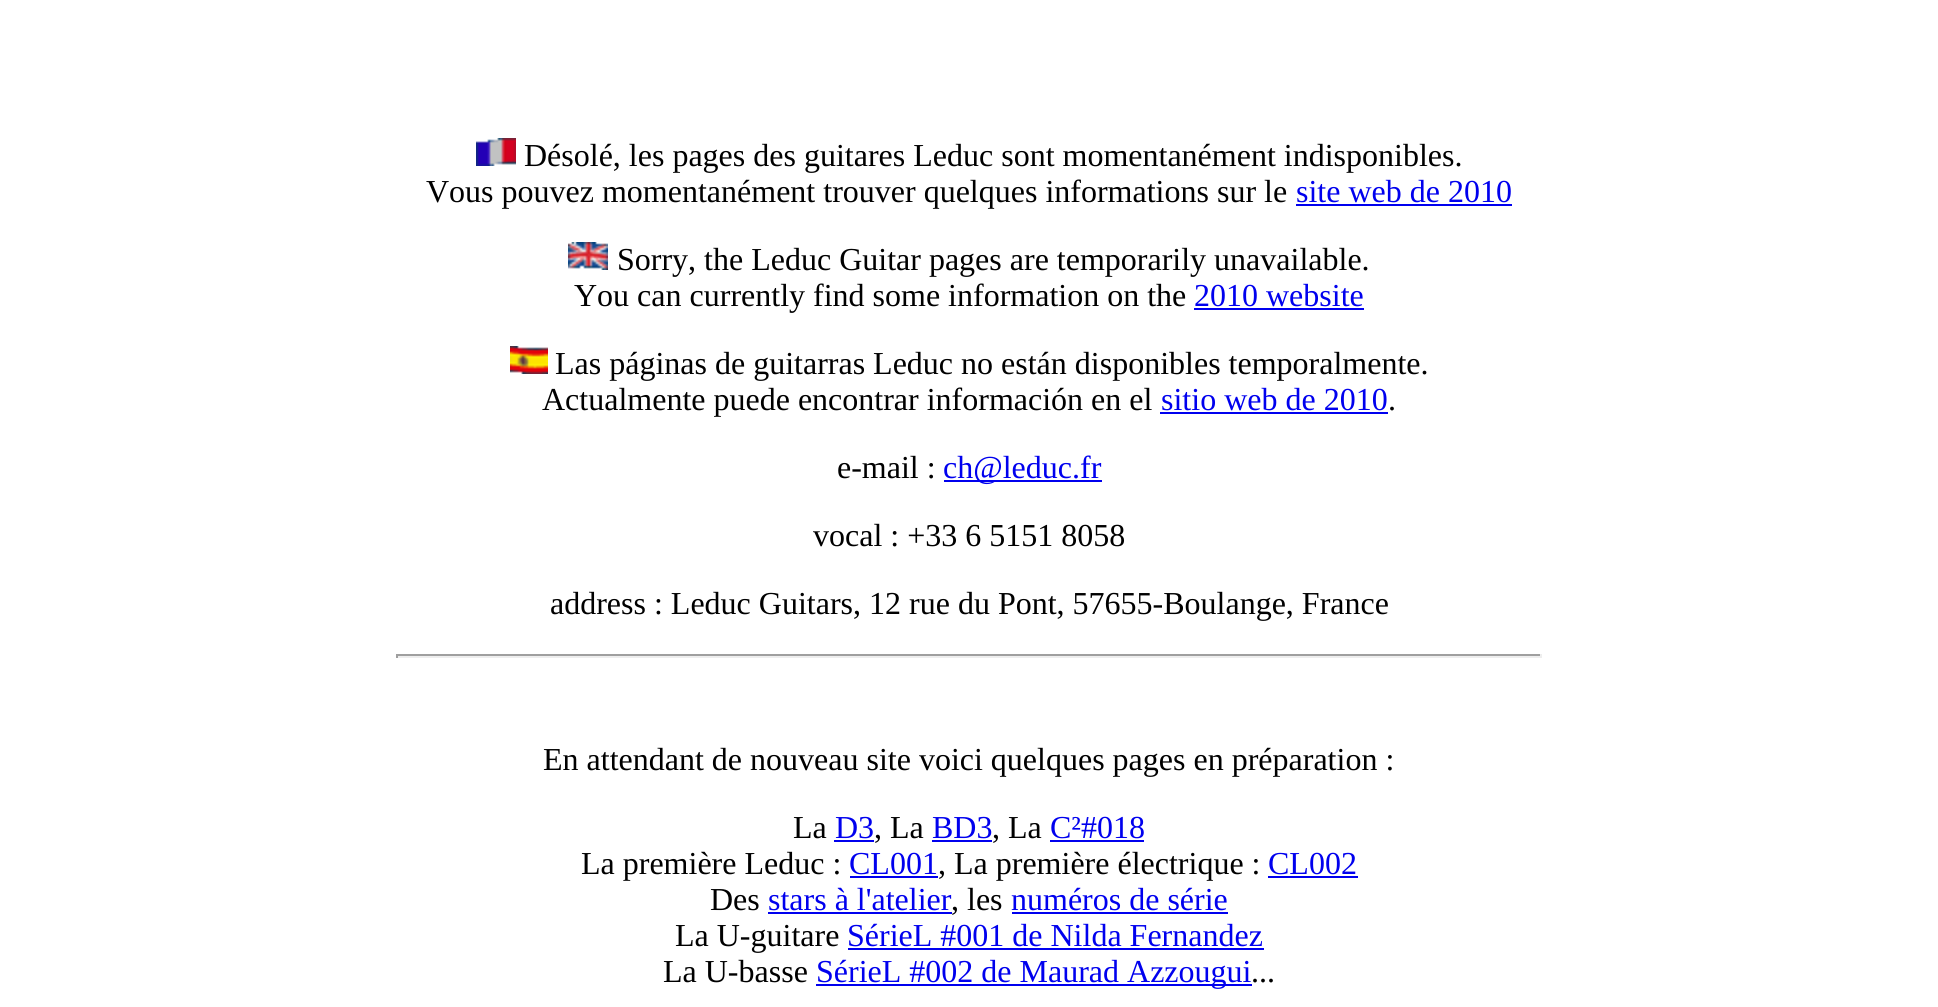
import math
import cairo

surface = cairo.ImageSurface(cairo.FORMAT_RGB24, 1938, 1007)
ctx = cairo.Context(surface)
options = cairo.FontOptions()
options.set_hint_metrics(cairo.HINT_METRICS_OFF)
options.set_hint_style(cairo.HINT_STYLE_NONE)
ctx.set_font_options(options)
ctx.set_miter_limit(4)


def picture(path, x, y, w, h):
    ctx.save()
    ctx.set_source_surface(cairo.ImageSurface.create_from_png(path), x, y)
    ctx.rectangle(x, y, w, h)
    ctx.fill()
    ctx.restore()


ctx.set_source_rgb(1, 1, 1)
ctx.paint()
picture("img1.png", 476, 138, 40, 28)
ctx.select_font_face("Liberation Serif")
ctx.set_font_size(32)
ctx.set_source_rgb(0, 0, 0)
ctx.move_to(524, 166)
ctx.show_text("Désolé, les pages des guitares Leduc sont momentanément indisponibles.")
ctx.move_to(426, 202)
ctx.show_text("Vous pouvez momentanément trouver quelques informations sur le")
ctx.set_source_rgb(0, 0, 0.933)
ctx.move_to(1296, 202)
ctx.show_text("site web de 2010")
ctx.rectangle(1296, 204, 216, 2)
ctx.fill()
picture("img2.png", 568, 242, 40, 28)
ctx.set_source_rgb(0, 0, 0)
ctx.move_to(617, 270)
ctx.show_text("Sorry, the Leduc Guitar pages are temporarily unavailable.")
ctx.move_to(574, 306)
ctx.show_text("You can currently find some information on the")
ctx.set_source_rgb(0, 0, 0.933)
ctx.move_to(1194, 306)
ctx.show_text("2010 website")
ctx.rectangle(1194, 308, 170, 2)
ctx.fill()
picture("img3.png", 510, 346, 38, 28)
ctx.set_source_rgb(0, 0, 0)
ctx.move_to(555, 374)
ctx.show_text("Las páginas de guitarras Leduc no están disponibles temporalmente.")
ctx.move_to(542, 410)
ctx.show_text("Actualmente puede encontrar información en el")
ctx.set_source_rgb(0, 0, 0.933)
ctx.move_to(1161, 410)
ctx.show_text("sitio web de 2010")
ctx.rectangle(1160, 412, 228, 2)
ctx.fill()
ctx.set_source_rgb(0, 0, 0)
ctx.move_to(1388, 410)
ctx.show_text(".")
ctx.move_to(837, 478)
ctx.show_text("e-mail :")
ctx.set_source_rgb(0, 0, 0.933)
ctx.rectangle(944, 480, 158, 2)
ctx.fill()
ctx.move_to(943, 478)
ctx.show_text("ch@leduc.fr")
ctx.set_source_rgb(0, 0, 0)
ctx.move_to(813, 546)
ctx.show_text("vocal : +33 6 5151 8058")
ctx.move_to(550, 614)
ctx.show_text("address : Leduc Guitars, 12 rue du Pont, 57655-Boulange, France")
ctx.set_source_rgb(0.624, 0.624, 0.624)
ctx.rectangle(396, 654, 1146, 2)
ctx.fill()
ctx.set_source_rgb(0.933, 0.933, 0.933)
ctx.rectangle(1540, 654, 2, 4)
ctx.fill()
ctx.rectangle(396, 656, 1146, 2)
ctx.fill()
ctx.set_source_rgb(0.624, 0.624, 0.624)
ctx.rectangle(396, 654, 2, 4)
ctx.fill()
ctx.set_source_rgb(0, 0, 0)
ctx.move_to(543, 770)
ctx.show_text("En attendant de nouveau site voici quelques pages en préparation :")
ctx.move_to(793, 838)
ctx.show_text("La")
ctx.set_source_rgb(0, 0, 0.933)
ctx.move_to(835, 838)
ctx.show_text("D3")
ctx.rectangle(834, 840, 40, 2)
ctx.fill()
ctx.set_source_rgb(0, 0, 0)
ctx.move_to(874, 838)
ctx.show_text(", La")
ctx.set_source_rgb(0, 0, 0.933)
ctx.move_to(932, 838)
ctx.show_text("BD3")
ctx.rectangle(932, 840, 60, 2)
ctx.fill()
ctx.set_source_rgb(0, 0, 0)
ctx.move_to(992, 838)
ctx.show_text(", La")
ctx.set_source_rgb(0, 0, 0.933)
ctx.move_to(1050, 838)
ctx.show_text("C²#018")
ctx.rectangle(1050, 840, 94, 2)
ctx.fill()
ctx.set_source_rgb(0, 0, 0)
ctx.move_to(581, 874)
ctx.show_text("La première Leduc :")
ctx.set_source_rgb(0, 0, 0.933)
ctx.move_to(849, 874)
ctx.show_text("CL001")
ctx.rectangle(850, 876, 88, 2)
ctx.fill()
ctx.set_source_rgb(0, 0, 0)
ctx.move_to(938, 874)
ctx.show_text(", La première électrique :")
ctx.set_source_rgb(0, 0, 0.933)
ctx.move_to(1268, 874)
ctx.show_text("CL002")
ctx.rectangle(1268, 876, 90, 2)
ctx.fill()
ctx.set_source_rgb(0, 0, 0)
ctx.move_to(710, 910)
ctx.show_text("Des")
ctx.set_source_rgb(0, 0, 0.933)
ctx.move_to(768, 910)
ctx.show_text("stars à l'atelier")
ctx.rectangle(768, 912, 184, 2)
ctx.fill()
ctx.set_source_rgb(0, 0, 0)
ctx.move_to(951, 910)
ctx.show_text(", les")
ctx.set_source_rgb(0, 0, 0.933)
ctx.move_to(1011, 910)
ctx.show_text("numéros de série")
ctx.rectangle(1012, 912, 216, 2)
ctx.fill()
ctx.set_source_rgb(0, 0, 0)
ctx.move_to(675, 946)
ctx.show_text("La U-guitare")
ctx.set_source_rgb(0, 0, 0.933)
ctx.move_to(847, 946)
ctx.show_text("SérieL #001 de Nilda Fernandez")
ctx.rectangle(848, 948, 416, 2)
ctx.fill()
ctx.set_source_rgb(0, 0, 0)
ctx.move_to(663, 982)
ctx.show_text("La U-basse")
ctx.set_source_rgb(0, 0, 0.933)
ctx.rectangle(816, 984, 436, 2)
ctx.fill()
ctx.move_to(816, 982)
ctx.show_text("SérieL #002 de Maurad Azzougui")
ctx.set_source_rgb(0, 0, 0)
ctx.move_to(1251, 982)
ctx.show_text("...")
surface.write_to_png("page.png")
